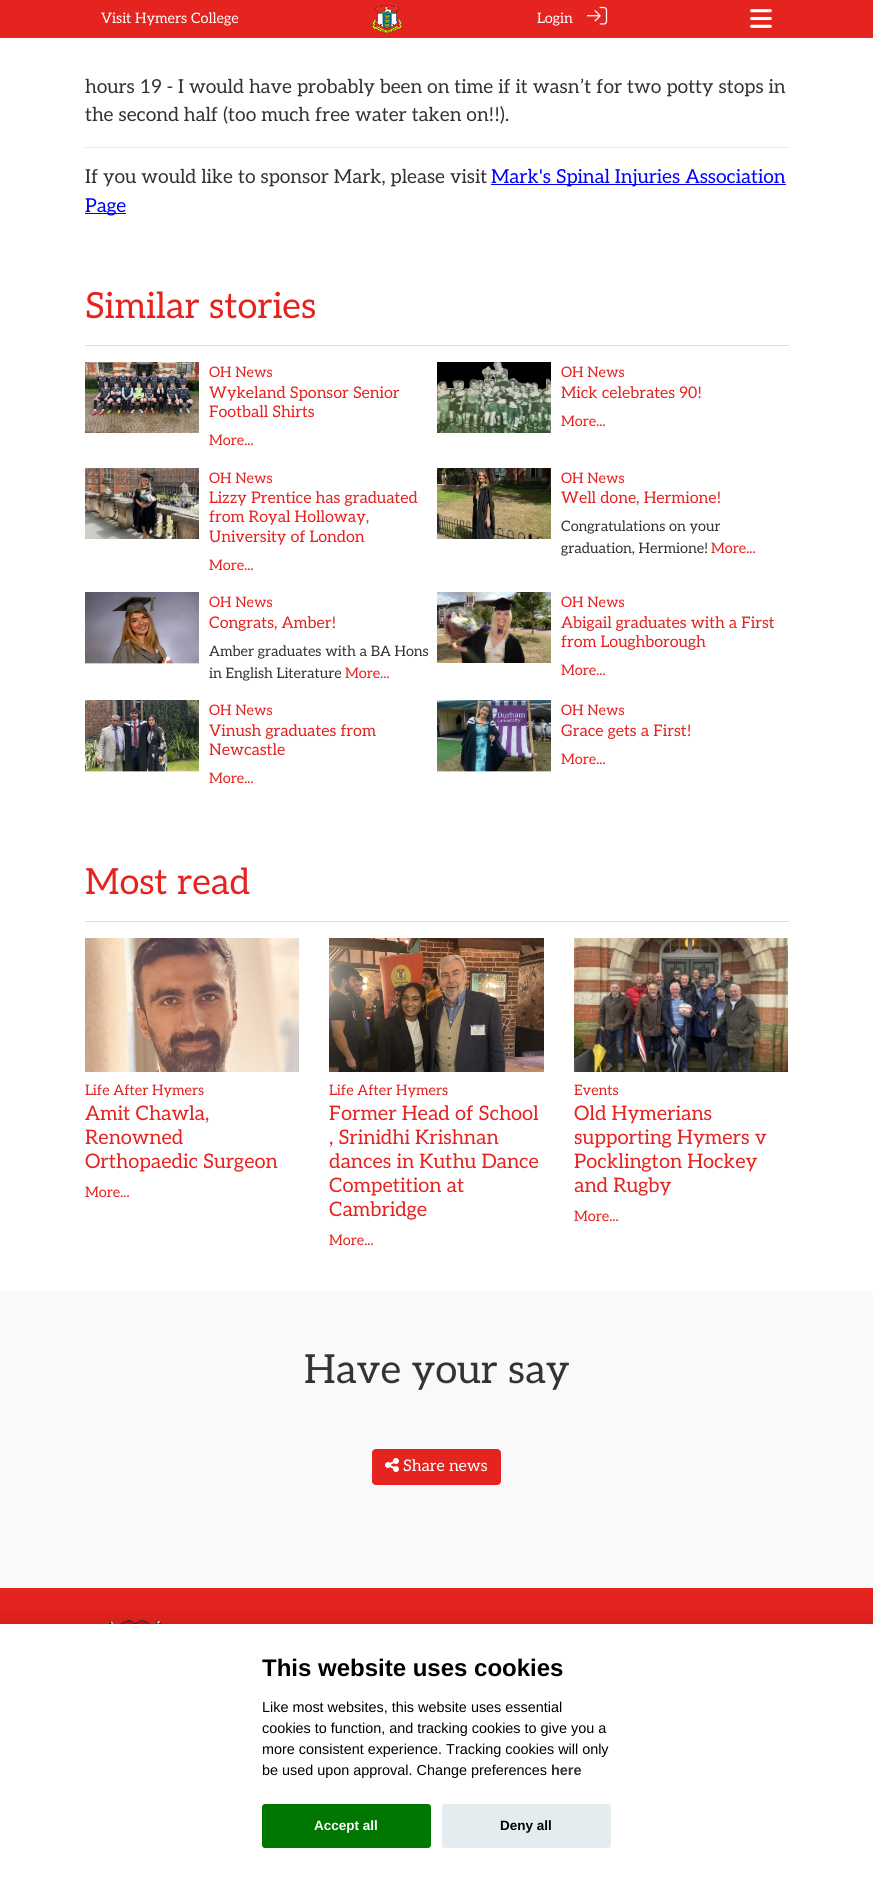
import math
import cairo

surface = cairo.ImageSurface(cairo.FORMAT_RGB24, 873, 1886)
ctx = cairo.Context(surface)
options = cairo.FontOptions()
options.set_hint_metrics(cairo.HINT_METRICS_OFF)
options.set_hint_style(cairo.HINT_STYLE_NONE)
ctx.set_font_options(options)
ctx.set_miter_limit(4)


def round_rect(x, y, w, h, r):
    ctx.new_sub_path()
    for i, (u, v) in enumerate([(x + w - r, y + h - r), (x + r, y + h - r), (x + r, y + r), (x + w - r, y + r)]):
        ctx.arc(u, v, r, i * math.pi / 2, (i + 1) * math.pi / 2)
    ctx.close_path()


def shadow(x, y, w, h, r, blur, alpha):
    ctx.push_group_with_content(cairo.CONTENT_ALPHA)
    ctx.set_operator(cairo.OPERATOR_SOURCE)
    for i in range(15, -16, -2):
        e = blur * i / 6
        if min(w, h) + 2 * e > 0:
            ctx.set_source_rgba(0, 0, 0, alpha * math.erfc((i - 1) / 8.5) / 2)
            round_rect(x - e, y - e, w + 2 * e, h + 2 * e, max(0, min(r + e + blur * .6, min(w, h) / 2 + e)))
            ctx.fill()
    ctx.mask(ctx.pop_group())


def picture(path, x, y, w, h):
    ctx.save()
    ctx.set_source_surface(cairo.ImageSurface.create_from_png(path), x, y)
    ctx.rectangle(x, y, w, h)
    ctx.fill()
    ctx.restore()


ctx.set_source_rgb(0.898, 0.137, 0.122)
ctx.paint()
ctx.select_font_face("Aleo")
ctx.set_font_size(14.4)
ctx.set_source_rgb(1, 1, 1)
ctx.move_to(101, 23)
ctx.show_text("Visit Hymers College")
picture("img1.png", 372, 5, 30, 28)
ctx.move_to(537, 23)
ctx.show_text("Login")
picture("img2.png", 586, 6, 22, 19)
picture("img3.png", 750, 9, 22, 19)
ctx.rectangle(0, 38, 873, 1253)
ctx.fill()
ctx.set_font_size(19.2)
ctx.set_source_rgb(0.2, 0.2, 0.2)
ctx.move_to(85, 93)
ctx.show_text("hours 19 - I would have probably been on time if it wasn’t for two potty stops in")
ctx.move_to(85, 121)
ctx.show_text("the second half (too much free water taken on!!).")
ctx.set_source_rgb(0.902, 0.902, 0.902)
ctx.rectangle(85, 147, 704, 1)
ctx.fill()
ctx.set_source_rgb(0.2, 0.2, 0.2)
ctx.move_to(85, 183)
ctx.show_text("If you would like to sponsor Mark, please visit")
ctx.set_source_rgb(0, 0, 1)
ctx.rectangle(491, 184, 295, 1)
ctx.fill()
ctx.move_to(491, 183)
ctx.show_text("Mark's Spinal Injuries Association")
ctx.rectangle(85, 213, 41, 1)
ctx.fill()
ctx.move_to(85, 212)
ctx.show_text("Page")
ctx.set_source_rgb(0.867, 0.867, 0.867)
ctx.rectangle(85, 345, 704, 1)
ctx.fill()
ctx.set_font_size(36)
ctx.set_source_rgb(0.898, 0.137, 0.122)
ctx.move_to(85, 318)
ctx.show_text("Similar stories")
picture("img4.png", 85, 362, 114, 71)
ctx.set_font_size(14.4)
ctx.move_to(209, 377)
ctx.show_text("OH News")
ctx.set_font_size(16)
ctx.move_to(209, 398)
ctx.show_text("Wykeland Sponsor Senior")
ctx.move_to(209, 417)
ctx.show_text("Football Shirts")
ctx.set_font_size(14.4)
ctx.move_to(209, 445)
ctx.show_text("More...")
picture("img5.png", 437, 362, 114, 71)
ctx.move_to(561, 377)
ctx.show_text("OH News")
ctx.set_font_size(16)
ctx.move_to(561, 398)
ctx.show_text("Mick celebrates 90!")
ctx.set_font_size(14.4)
ctx.move_to(561, 426)
ctx.show_text("More...")
picture("img6.png", 85, 468, 114, 71)
ctx.move_to(209, 483)
ctx.show_text("OH News")
ctx.set_font_size(16)
ctx.move_to(209, 503)
ctx.show_text("Lizzy Prentice has graduated")
ctx.move_to(209, 522)
ctx.show_text("from Royal Holloway,")
ctx.move_to(209, 542)
ctx.show_text("University of London")
ctx.set_font_size(14.4)
ctx.move_to(209, 570)
ctx.show_text("More...")
picture("img7.png", 437, 468, 114, 71)
ctx.move_to(561, 483)
ctx.show_text("OH News")
ctx.set_font_size(16)
ctx.move_to(561, 503)
ctx.show_text("Well done, Hermione!")
ctx.set_font_size(14.4)
ctx.set_source_rgb(0.2, 0.2, 0.2)
ctx.move_to(561, 531)
ctx.show_text("Congratulations on your")
ctx.move_to(561, 553)
ctx.show_text("graduation, Hermione!")
ctx.set_source_rgb(0.898, 0.137, 0.122)
ctx.move_to(711, 553)
ctx.show_text("More...")
picture("img8.png", 85, 592, 114, 72)
ctx.move_to(209, 607)
ctx.show_text("OH News")
ctx.set_font_size(16)
ctx.move_to(209, 628)
ctx.show_text("Congrats, Amber!")
ctx.set_font_size(14.4)
ctx.set_source_rgb(0.2, 0.2, 0.2)
ctx.move_to(209, 656)
ctx.show_text("Amber graduates with a BA Hons")
ctx.move_to(209, 678)
ctx.show_text("in English Literature")
ctx.set_source_rgb(0.898, 0.137, 0.122)
ctx.move_to(345, 678)
ctx.show_text("More...")
picture("img9.png", 437, 592, 114, 71)
ctx.move_to(561, 607)
ctx.show_text("OH News")
ctx.set_font_size(16)
ctx.move_to(561, 628)
ctx.show_text("Abigail graduates with a First")
ctx.move_to(561, 647)
ctx.show_text("from Loughborough")
ctx.set_font_size(14.4)
ctx.move_to(561, 675)
ctx.show_text("More...")
picture("img10.png", 85, 700, 114, 72)
ctx.move_to(209, 715)
ctx.show_text("OH News")
ctx.set_font_size(16)
ctx.move_to(209, 736)
ctx.show_text("Vinush graduates from")
ctx.move_to(209, 755)
ctx.show_text("Newcastle")
ctx.set_font_size(14.4)
ctx.move_to(209, 783)
ctx.show_text("More...")
picture("img11.png", 437, 700, 114, 72)
ctx.move_to(561, 715)
ctx.show_text("OH News")
ctx.set_font_size(16)
ctx.move_to(561, 736)
ctx.show_text("Grace gets a First!")
ctx.set_font_size(14.4)
ctx.move_to(561, 764)
ctx.show_text("More...")
ctx.set_source_rgb(0.867, 0.867, 0.867)
ctx.rectangle(85, 921, 704, 1)
ctx.fill()
ctx.set_font_size(36)
ctx.set_source_rgb(0.898, 0.137, 0.122)
ctx.move_to(85, 894)
ctx.show_text("Most read")
picture("img12.png", 85, 938, 214, 134)
ctx.set_font_size(14.4)
ctx.move_to(85, 1095)
ctx.show_text("Life After Hymers")
ctx.set_font_size(20)
ctx.move_to(85, 1120)
ctx.show_text("Amit Chawla,")
ctx.move_to(85, 1144)
ctx.show_text("Renowned")
ctx.move_to(85, 1168)
ctx.show_text("Orthopaedic Surgeon")
ctx.set_font_size(14.4)
ctx.move_to(85, 1197)
ctx.show_text("More...")
picture("img13.png", 329, 938, 215, 134)
ctx.move_to(329, 1095)
ctx.show_text("Life After Hymers")
ctx.set_font_size(20)
ctx.move_to(329, 1120)
ctx.show_text("Former Head of School")
ctx.move_to(329, 1144)
ctx.show_text(", Srinidhi Krishnan")
ctx.move_to(329, 1168)
ctx.show_text("dances in Kuthu Dance")
ctx.move_to(329, 1192)
ctx.show_text("Competition at")
ctx.move_to(329, 1216)
ctx.show_text("Cambridge")
ctx.set_font_size(14.4)
ctx.move_to(329, 1245)
ctx.show_text("More...")
picture("img14.png", 574, 938, 214, 134)
ctx.move_to(574, 1095)
ctx.show_text("Events")
ctx.set_font_size(20)
ctx.move_to(574, 1120)
ctx.show_text("Old Hymerians")
ctx.move_to(574, 1144)
ctx.show_text("supporting Hymers v")
ctx.move_to(574, 1168)
ctx.show_text("Pocklington Hockey")
ctx.move_to(574, 1192)
ctx.show_text("and Rugby")
ctx.set_font_size(14.4)
ctx.move_to(574, 1221)
ctx.show_text("More...")
ctx.set_source_rgb(0.976, 0.973, 0.973)
ctx.rectangle(0, 1291, 873, 297)
ctx.fill()
ctx.set_font_size(40)
ctx.set_source_rgb(0.2, 0.2, 0.2)
ctx.move_to(304, 1383)
ctx.show_text("Have your say")
ctx.set_source_rgb(0.898, 0.137, 0.122)
round_rect(372, 1449, 129, 36, 4)
ctx.fill()
picture("img15.png", 385, 1458, 14, 14)
ctx.set_font_size(16)
ctx.set_source_rgb(1, 1, 1)
ctx.move_to(403, 1471)
ctx.show_text("Share news")
picture("img16.png", 108, 1620, 54, 4)
ctx.set_source_rgb(0.008, 0.008, 0.012)
shadow(0, 1634, 873, 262, 0, 15, 0.28)
ctx.set_source_rgb(1, 1, 1)
ctx.rectangle(0, 1624, 873, 262)
ctx.fill()
ctx.select_font_face("Liberation Sans", cairo.FONT_SLANT_NORMAL, cairo.FONT_WEIGHT_BOLD)
ctx.set_font_size(24)
ctx.set_source_rgb(0, 0, 0)
ctx.move_to(262, 1676)
ctx.show_text("This website uses cookies")
ctx.select_font_face("Liberation Sans")
ctx.set_font_size(14.4)
ctx.move_to(262, 1712)
ctx.show_text("Like most websites, this website uses essential")
ctx.move_to(262, 1733)
ctx.show_text("cookies to function, and tracking cookies to give you a")
ctx.move_to(262, 1754)
ctx.show_text("more consistent experience. Tracking cookies will only")
ctx.move_to(262, 1775)
ctx.show_text("be used upon approval. Change preferences")
ctx.select_font_face("Liberation Sans", cairo.FONT_SLANT_NORMAL, cairo.FONT_WEIGHT_BOLD)
ctx.set_source_rgb(0.2, 0.2, 0.2)
ctx.move_to(551, 1775)
ctx.show_text("here")
ctx.set_source_rgb(0, 0.467, 0)
round_rect(262, 1804, 169, 44, 3)
ctx.fill()
ctx.set_font_size(13.5)
ctx.set_source_rgb(1, 1, 1)
ctx.move_to(314, 1830)
ctx.show_text("Accept all")
ctx.set_source_rgb(0.898, 0.922, 0.937)
round_rect(442, 1804, 169, 44, 3)
ctx.fill()
ctx.set_source_rgb(0, 0, 0)
ctx.move_to(500, 1830)
ctx.show_text("Deny all")
surface.write_to_png("page.png")
